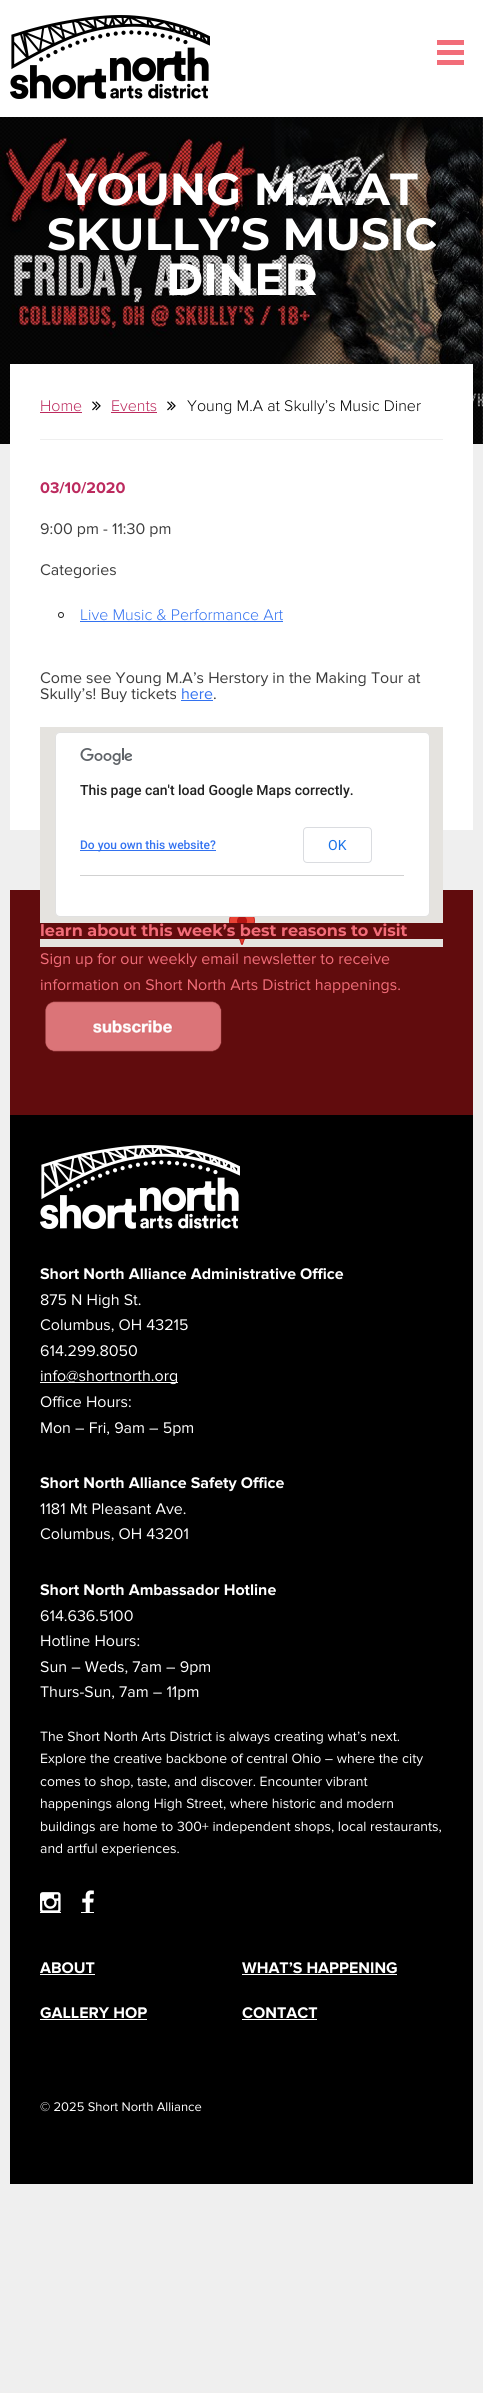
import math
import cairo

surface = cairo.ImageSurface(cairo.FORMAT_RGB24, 483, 2393)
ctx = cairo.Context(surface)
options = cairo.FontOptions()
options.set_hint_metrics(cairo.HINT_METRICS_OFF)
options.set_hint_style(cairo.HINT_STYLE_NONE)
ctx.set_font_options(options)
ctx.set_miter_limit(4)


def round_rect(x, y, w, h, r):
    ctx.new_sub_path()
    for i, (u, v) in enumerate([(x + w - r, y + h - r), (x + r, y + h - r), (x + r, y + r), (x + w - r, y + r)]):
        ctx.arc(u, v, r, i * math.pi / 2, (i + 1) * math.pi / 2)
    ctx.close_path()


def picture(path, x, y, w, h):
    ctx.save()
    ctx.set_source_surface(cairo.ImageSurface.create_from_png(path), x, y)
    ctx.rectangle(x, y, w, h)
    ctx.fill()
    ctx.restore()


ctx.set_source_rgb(0.937, 0.937, 0.937)
ctx.paint()
ctx.set_source_rgb(1, 1, 1)
ctx.rectangle(0, 0, 483, 117)
ctx.fill()
picture("img1.png", 10, 15, 200, 84)
ctx.set_source_rgb(0.949, 0.427, 0.475)
ctx.rectangle(437, 60, 27, 5)
ctx.fill()
ctx.rectangle(437, 40, 27, 5)
ctx.fill()
ctx.rectangle(437, 50, 27, 5)
ctx.fill()
picture("img2.png", 0, 117, 483, 327)
picture("img3.png", 0, 117, 483, 327)
ctx.select_font_face("Montserrat", cairo.FONT_SLANT_NORMAL, cairo.FONT_WEIGHT_BOLD)
ctx.set_font_size(45)
ctx.set_source_rgb(1, 1, 1)
ctx.move_to(66, 205)
ctx.show_text("YOUNG M.A AT")
ctx.move_to(47, 250)
ctx.show_text("SKULLY’S MUSIC")
ctx.move_to(166, 295)
ctx.show_text("DINER")
ctx.rectangle(10, 364, 463, 466)
ctx.fill()
ctx.set_source_rgb(0.937, 0.937, 0.937)
ctx.rectangle(40, 439, 403, 1)
ctx.fill()
ctx.select_font_face("Proxima Nova Light")
ctx.set_font_size(16)
ctx.set_source_rgb(0.737, 0.165, 0.369)
ctx.move_to(40, 411)
ctx.show_text("Home")
ctx.rectangle(40, 412, 42, 1)
ctx.fill()
picture("img4.png", 92, 401, 9, 10)
ctx.move_to(111, 411)
ctx.show_text("Events")
ctx.rectangle(111, 412, 46, 1)
ctx.fill()
picture("img4.png", 167, 401, 9, 10)
ctx.set_source_rgb(0, 0, 0)
ctx.move_to(187, 411)
ctx.show_text("Young M.A at Skully’s Music Diner")
ctx.select_font_face("Proxima Nova", cairo.FONT_SLANT_NORMAL, cairo.FONT_WEIGHT_BOLD)
ctx.set_source_rgb(0.737, 0.165, 0.369)
ctx.move_to(40, 493)
ctx.show_text("03/10/2020")
ctx.select_font_face("Proxima Nova")
ctx.set_source_rgb(0.235, 0.235, 0.235)
ctx.move_to(40, 534)
ctx.show_text("9:00 pm - 11:30 pm")
ctx.move_to(40, 575)
ctx.show_text("Categories")
ctx.new_path()
ctx.arc(61, 615, 2.5, 0, 2 * math.pi)
ctx.set_source_rgb(0.129, 0.129, 0.129)
ctx.set_line_width(1)
ctx.stroke()
ctx.select_font_face("Proxima Nova Light")
ctx.set_source_rgb(0.2, 0.447, 0.941)
ctx.move_to(80, 620)
ctx.show_text("Live Music & Performance Art")
ctx.rectangle(80, 621, 203, 1)
ctx.fill()
ctx.select_font_face("Proxima Nova")
ctx.set_source_rgb(0.235, 0.235, 0.235)
ctx.move_to(40, 683)
ctx.show_text("Come see Young M.A’s Herstory in the Making Tour at")
ctx.move_to(40, 699)
ctx.show_text("Skully’s! Buy tickets")
ctx.set_source_rgb(0.2, 0.447, 0.941)
ctx.move_to(181, 699)
ctx.show_text("here")
ctx.rectangle(181, 700, 32, 1)
ctx.fill()
ctx.set_source_rgb(0.235, 0.235, 0.235)
ctx.move_to(213, 699)
ctx.show_text(".")
ctx.set_source_rgb(0.38, 0.047, 0.051)
ctx.rectangle(10, 890, 463, 225)
ctx.fill()
ctx.set_source_rgb(0.898, 0.89, 0.875)
ctx.rectangle(40, 727, 403, 220)
ctx.fill()
picture("img5.png", 229, 917, 26, 28)
ctx.set_source_rgb(1, 1, 1)
round_rect(55, 732, 375, 185, 5)
ctx.fill()
round_rect(55.5, 732.5, 374, 184, 4.5)
ctx.set_source_rgba(0, 0, 0, 0.12)
ctx.stroke()
picture("img6.png", 80, 748, 52, 17)
ctx.select_font_face("Roboto Medium")
ctx.set_font_size(14)
ctx.set_source_rgb(0.129, 0.129, 0.129)
ctx.move_to(80, 795)
ctx.show_text("This page can't load Google Maps correctly.")
ctx.set_source_rgb(0.2, 0.447, 0.941)
ctx.rectangle(80, 850, 136, 1)
ctx.fill()
ctx.set_font_size(12)
ctx.move_to(80, 849)
ctx.show_text("Do you own this website?")
ctx.set_source_rgb(0.82, 0.82, 0.82)
ctx.rectangle(80, 875, 324, 1)
ctx.fill()
round_rect(303.5, 827.5, 68, 35, 3.5)
ctx.set_source_rgb(0.855, 0.863, 0.878)
ctx.stroke()
ctx.select_font_face("Roboto")
ctx.set_font_size(14)
ctx.set_source_rgb(0.102, 0.451, 0.91)
ctx.move_to(328, 850)
ctx.show_text("OK")
ctx.set_source_rgb(0.38, 0.047, 0.051)
ctx.rectangle(40, 923, 403, 16)
ctx.fill()
ctx.select_font_face("Montserrat", cairo.FONT_SLANT_NORMAL, cairo.FONT_WEIGHT_BOLD)
ctx.set_font_size(16)
ctx.set_source_rgb(0.949, 0.427, 0.475)
ctx.move_to(40, 936)
ctx.show_text("learn about this week’s best reasons to visit")
ctx.select_font_face("Proxima Nova")
ctx.move_to(40, 964)
ctx.show_text("Sign up for our weekly email newsletter to receive")
ctx.move_to(40, 990)
ctx.show_text("information on Short North Arts District happenings.")
picture("img7.png", 45, 1001, 177, 51)
ctx.set_source_rgb(0, 0, 0)
ctx.rectangle(10, 1115, 463, 1069)
ctx.fill()
picture("img8.png", 40, 1145, 200, 84)
ctx.select_font_face("Proxima Nova", cairo.FONT_SLANT_NORMAL, cairo.FONT_WEIGHT_BOLD)
ctx.set_source_rgb(1, 1, 1)
ctx.move_to(40, 1279)
ctx.show_text("Short North Alliance Administrative Office")
ctx.select_font_face("Proxima Nova")
ctx.move_to(40, 1305)
ctx.show_text("875 N High St.")
ctx.move_to(40, 1330)
ctx.show_text("Columbus, OH 43215")
ctx.move_to(40, 1356)
ctx.show_text("614.299.8050")
ctx.rectangle(40, 1382, 138, 1)
ctx.fill()
ctx.move_to(40, 1381)
ctx.show_text("info@shortnorth.org")
ctx.move_to(40, 1407)
ctx.show_text("Office Hours:")
ctx.move_to(40, 1433)
ctx.show_text("Mon – Fri, 9am – 5pm")
ctx.select_font_face("Proxima Nova", cairo.FONT_SLANT_NORMAL, cairo.FONT_WEIGHT_BOLD)
ctx.move_to(40, 1488)
ctx.show_text("Short North Alliance Safety Office")
ctx.select_font_face("Proxima Nova")
ctx.move_to(40, 1514)
ctx.show_text("1181 Mt Pleasant Ave.")
ctx.move_to(40, 1539)
ctx.show_text("Columbus, OH 43201")
ctx.select_font_face("Proxima Nova", cairo.FONT_SLANT_NORMAL, cairo.FONT_WEIGHT_BOLD)
ctx.move_to(40, 1595)
ctx.show_text("Short North Ambassador Hotline")
ctx.select_font_face("Proxima Nova")
ctx.move_to(40, 1621)
ctx.show_text("614.636.5100")
ctx.move_to(40, 1646)
ctx.show_text("Hotline Hours:")
ctx.move_to(40, 1672)
ctx.show_text("Sun – Weds, 7am – 9pm")
ctx.move_to(40, 1697)
ctx.show_text("Thurs-Sun, 7am – 11pm")
ctx.set_font_size(14)
ctx.move_to(40, 1741)
ctx.show_text("The Short North Arts District is always creating what’s next.")
ctx.move_to(40, 1763)
ctx.show_text("Explore the creative backbone of central Ohio – where the city")
ctx.move_to(40, 1786)
ctx.show_text("comes to shop, taste, and discover. Encounter vibrant")
ctx.move_to(40, 1808)
ctx.show_text("happenings along High Street, where historic and modern")
ctx.move_to(40, 1831)
ctx.show_text("buildings are home to 300+ independent shops, local restaurants,")
ctx.move_to(40, 1853)
ctx.show_text("and artful experiences.")
picture("img9.png", 40, 1892, 21, 20)
ctx.rectangle(40, 1912, 21, 1)
ctx.fill()
picture("img10.png", 82, 1890, 12, 22)
ctx.rectangle(81, 1912, 13, 1)
ctx.fill()
ctx.select_font_face("Proxima Nova", cairo.FONT_SLANT_NORMAL, cairo.FONT_WEIGHT_BOLD)
ctx.set_font_size(16)
ctx.move_to(40, 1973)
ctx.show_text("ABOUT")
ctx.rectangle(40, 1974, 55, 1)
ctx.fill()
ctx.move_to(242, 1973)
ctx.show_text("WHAT’S HAPPENING")
ctx.rectangle(242, 1974, 155, 1)
ctx.fill()
ctx.move_to(40, 2018)
ctx.show_text("GALLERY HOP")
ctx.rectangle(40, 2019, 107, 1)
ctx.fill()
ctx.move_to(242, 2018)
ctx.show_text("CONTACT")
ctx.rectangle(242, 2019, 75, 1)
ctx.fill()
ctx.select_font_face("Proxima Nova")
ctx.set_font_size(13)
ctx.move_to(40, 2111)
ctx.show_text("© 2025 Short North Alliance")
surface.write_to_png("page.png")
